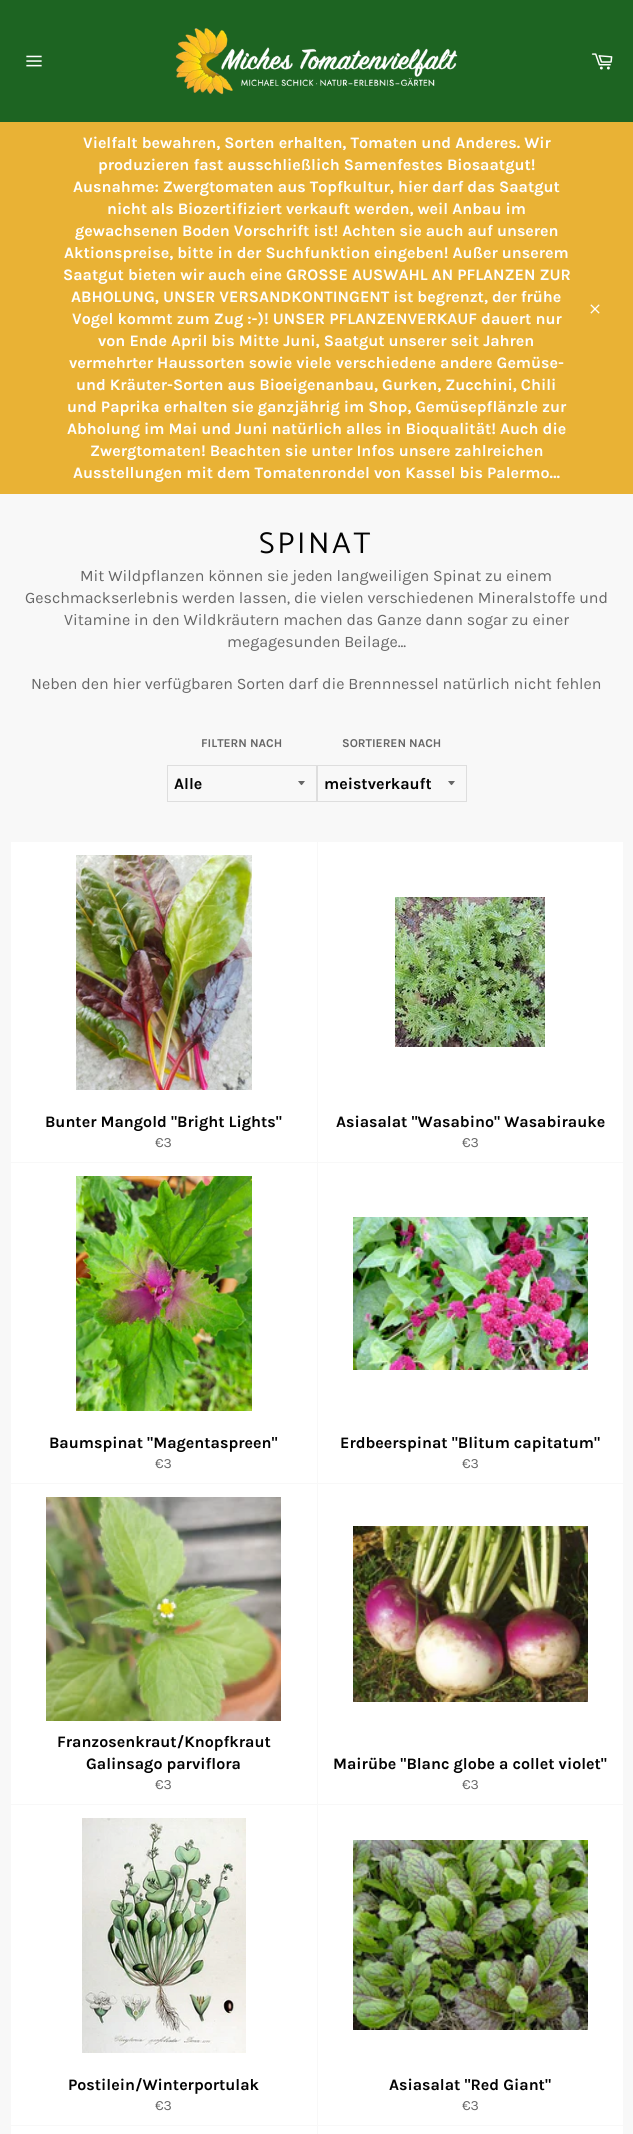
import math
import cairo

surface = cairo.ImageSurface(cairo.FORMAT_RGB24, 633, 2134)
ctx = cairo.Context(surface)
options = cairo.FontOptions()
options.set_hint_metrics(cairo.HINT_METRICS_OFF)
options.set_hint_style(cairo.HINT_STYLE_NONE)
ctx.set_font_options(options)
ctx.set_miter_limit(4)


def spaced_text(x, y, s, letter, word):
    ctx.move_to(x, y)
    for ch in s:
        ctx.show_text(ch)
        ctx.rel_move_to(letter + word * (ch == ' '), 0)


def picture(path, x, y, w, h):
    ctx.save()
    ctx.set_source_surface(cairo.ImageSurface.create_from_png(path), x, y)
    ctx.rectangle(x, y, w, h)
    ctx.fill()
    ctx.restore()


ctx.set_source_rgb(0.969, 0.969, 0.969)
ctx.paint()
ctx.set_source_rgb(0.114, 0.392, 0.133)
ctx.rectangle(0, 0, 633, 122)
ctx.fill()
picture("img1.png", 26, 55, 16, 12)
picture("img2.png", 175, 28, 283, 67)
picture("img3.png", 591, 53, 22, 17)
ctx.set_source_rgb(0.914, 0.698, 0.208)
ctx.rectangle(0, 122, 633, 372)
ctx.fill()
ctx.select_font_face("Karla", cairo.FONT_SLANT_NORMAL, cairo.FONT_WEIGHT_BOLD)
ctx.set_font_size(16)
ctx.set_source_rgb(1, 1, 1)
ctx.move_to(83, 148)
ctx.show_text("Vielfalt bewahren, Sorten erhalten, Tomaten und Anderes. Wir")
ctx.move_to(98, 170)
ctx.show_text("produzieren fast ausschließlich Samenfestes Biosaatgut!")
ctx.move_to(73, 192)
ctx.show_text("Ausnahme: Zwergtomaten aus Topfkultur, hier darf das Saatgut")
ctx.move_to(107, 214)
ctx.show_text("nicht als Biozertifiziert verkauft werden, weil Anbau im")
ctx.move_to(75, 236)
ctx.show_text("gewachsenen Boden Vorschrift ist! Achten sie auch auf unseren")
ctx.move_to(64, 258)
ctx.show_text("Aktionspreise, bitte in der Suchfunktion eingeben! Außer unserem")
ctx.move_to(63, 280)
ctx.show_text("Saatgut bieten wir auch eine GROSSE AUSWAHL AN PFLANZEN ZUR")
ctx.move_to(71, 302)
ctx.show_text("ABHOLUNG, UNSER VERSANDKONTINGENT ist begrenzt, der frühe")
ctx.move_to(72, 324)
ctx.show_text("Vogel kommt zum Zug :-)! UNSER PFLANZENVERKAUF dauert nur")
ctx.move_to(98, 346)
ctx.show_text("von Ende April bis Mitte Juni, Saatgut unserer seit Jahren")
ctx.move_to(69, 368)
ctx.show_text("vermehrter Haussorten sowie viele verschiedene andere Gemüse-")
ctx.move_to(76, 390)
ctx.show_text("und Kräuter-Sorten aus Bioeigenanbau, Gurken, Zucchini, Chili")
ctx.move_to(67, 412)
ctx.show_text("und Paprika erhalten sie ganzjährig im Shop, Gemüsepflänzle zur")
ctx.move_to(67, 434)
ctx.show_text("Abholung im Mai und Juni natürlich alles in Bioqualität! Auch die")
ctx.move_to(90, 456)
ctx.show_text("Zwergtomaten! Beachten sie unter Infos unsere zahlreichen")
ctx.move_to(73, 478)
ctx.show_text("Ausstellungen mit dem Tomatenrondel von Kassel bis Palermo…")
picture("img4.png", 590, 304, 10, 10)
ctx.select_font_face("Catamaran")
ctx.set_font_size(30)
ctx.set_source_rgb(0.012, 0.012, 0.012)
spaced_text(259, 553, "SPINAT", 3, 0)
ctx.select_font_face("Karla")
ctx.set_font_size(16)
ctx.set_source_rgb(0.4, 0.4, 0.4)
ctx.move_to(80, 581)
ctx.show_text("Mit Wildpflanzen können sie jeden langweiligen Spinat zu einem")
ctx.move_to(25, 603)
ctx.show_text("Geschmackserlebnis werden lassen, die vielen verschiedenen Mineralstoffe und")
ctx.move_to(64, 625)
ctx.show_text("Vitamine in den Wildkräutern machen das Ganze dann sogar zu einer")
ctx.move_to(227, 647)
ctx.show_text("megagesunden Beilage...")
ctx.move_to(31, 689)
ctx.show_text("Neben den hier verfügbaren Sorten darf die Brennnessel natürlich nicht fehlen")
ctx.select_font_face("Karla", cairo.FONT_SLANT_NORMAL, cairo.FONT_WEIGHT_BOLD)
ctx.set_font_size(12)
ctx.move_to(201, 747)
ctx.show_text("FILTERN NACH")
ctx.new_path()
ctx.move_to(298, 781)
ctx.curve_to(302.5, 786.5, 300.5, 786.5, 305, 781)
ctx.close_path()
ctx.fill()
ctx.rectangle(167.5, 765.5, 149, 36)
ctx.set_source_rgb(0.871, 0.871, 0.871)
ctx.set_line_width(1)
ctx.stroke()
ctx.set_font_size(16)
ctx.set_source_rgb(0.012, 0.012, 0.012)
ctx.move_to(174, 789)
ctx.show_text("Alle")
ctx.set_font_size(12)
ctx.set_source_rgb(0.4, 0.4, 0.4)
ctx.move_to(342, 747)
ctx.show_text("SORTIEREN NACH")
ctx.new_path()
ctx.move_to(448, 781)
ctx.curve_to(452.5, 786.5, 450.5, 786.5, 455, 781)
ctx.close_path()
ctx.fill()
ctx.rectangle(317.5, 765.5, 149, 36)
ctx.set_source_rgb(0.871, 0.871, 0.871)
ctx.stroke()
ctx.set_font_size(16)
ctx.set_source_rgb(0.012, 0.012, 0.012)
ctx.move_to(324, 789)
ctx.show_text("meistverkauft")
ctx.set_source_rgb(1, 1, 1)
ctx.rectangle(11, 842, 306, 320)
ctx.fill()
picture("img5.png", 76, 855, 176, 235)
ctx.set_source_rgb(0.012, 0.012, 0.012)
ctx.move_to(45, 1127)
ctx.show_text("Bunter Mangold \"Bright Lights\"")
ctx.select_font_face("Karla")
ctx.set_font_size(14)
ctx.set_source_rgb(0.4, 0.4, 0.4)
ctx.move_to(155, 1147)
ctx.show_text("€3")
ctx.set_source_rgb(1, 1, 1)
ctx.rectangle(318, 842, 305, 320)
ctx.fill()
picture("img6.png", 395, 897, 150, 150)
ctx.select_font_face("Karla", cairo.FONT_SLANT_NORMAL, cairo.FONT_WEIGHT_BOLD)
ctx.set_font_size(16)
ctx.set_source_rgb(0.012, 0.012, 0.012)
ctx.move_to(336, 1127)
ctx.show_text("Asiasalat \"Wasabino\" Wasabirauke")
ctx.select_font_face("Karla")
ctx.set_font_size(14)
ctx.set_source_rgb(0.4, 0.4, 0.4)
ctx.move_to(462, 1147)
ctx.show_text("€3")
ctx.set_source_rgb(1, 1, 1)
ctx.rectangle(11, 1163, 306, 320)
ctx.fill()
picture("img7.png", 76, 1176, 176, 235)
ctx.select_font_face("Karla", cairo.FONT_SLANT_NORMAL, cairo.FONT_WEIGHT_BOLD)
ctx.set_font_size(16)
ctx.set_source_rgb(0.012, 0.012, 0.012)
ctx.move_to(49, 1448)
ctx.show_text("Baumspinat \"Magentaspreen\"")
ctx.select_font_face("Karla")
ctx.set_font_size(14)
ctx.set_source_rgb(0.4, 0.4, 0.4)
ctx.move_to(155, 1468)
ctx.show_text("€3")
ctx.set_source_rgb(1, 1, 1)
ctx.rectangle(318, 1163, 305, 320)
ctx.fill()
picture("img8.png", 353, 1217, 235, 153)
ctx.select_font_face("Karla", cairo.FONT_SLANT_NORMAL, cairo.FONT_WEIGHT_BOLD)
ctx.set_font_size(16)
ctx.set_source_rgb(0.012, 0.012, 0.012)
ctx.move_to(340, 1448)
ctx.show_text("Erdbeerspinat \"Blitum capitatum\"")
ctx.select_font_face("Karla")
ctx.set_font_size(14)
ctx.set_source_rgb(0.4, 0.4, 0.4)
ctx.move_to(462, 1468)
ctx.show_text("€3")
ctx.set_source_rgb(1, 1, 1)
ctx.rectangle(11, 1484, 306, 320)
ctx.fill()
picture("img9.png", 46, 1497, 235, 224)
ctx.select_font_face("Karla", cairo.FONT_SLANT_NORMAL, cairo.FONT_WEIGHT_BOLD)
ctx.set_font_size(16)
ctx.set_source_rgb(0.012, 0.012, 0.012)
ctx.move_to(57, 1747)
ctx.show_text("Franzosenkraut/Knopfkraut")
ctx.move_to(86, 1769)
ctx.show_text("Galinsago parviflora")
ctx.select_font_face("Karla")
ctx.set_font_size(14)
ctx.set_source_rgb(0.4, 0.4, 0.4)
ctx.move_to(155, 1789)
ctx.show_text("€3")
ctx.set_source_rgb(1, 1, 1)
ctx.rectangle(318, 1484, 305, 320)
ctx.fill()
picture("img10.png", 353, 1526, 235, 176)
ctx.select_font_face("Karla", cairo.FONT_SLANT_NORMAL, cairo.FONT_WEIGHT_BOLD)
ctx.set_font_size(16)
ctx.set_source_rgb(0.012, 0.012, 0.012)
ctx.move_to(333, 1769)
ctx.show_text("Mairübe \"Blanc globe a collet violet\"")
ctx.select_font_face("Karla")
ctx.set_font_size(14)
ctx.set_source_rgb(0.4, 0.4, 0.4)
ctx.move_to(462, 1789)
ctx.show_text("€3")
ctx.set_source_rgb(1, 1, 1)
ctx.rectangle(11, 1805, 306, 320)
ctx.fill()
picture("img11.png", 82, 1818, 164, 235)
ctx.select_font_face("Karla", cairo.FONT_SLANT_NORMAL, cairo.FONT_WEIGHT_BOLD)
ctx.set_font_size(16)
ctx.set_source_rgb(0.012, 0.012, 0.012)
ctx.move_to(68, 2090)
ctx.show_text("Postilein/Winterportulak")
ctx.select_font_face("Karla")
ctx.set_font_size(14)
ctx.set_source_rgb(0.4, 0.4, 0.4)
ctx.move_to(155, 2110)
ctx.show_text("€3")
ctx.set_source_rgb(1, 1, 1)
ctx.rectangle(318, 1805, 305, 320)
ctx.fill()
picture("img12.png", 353, 1840, 235, 190)
ctx.select_font_face("Karla", cairo.FONT_SLANT_NORMAL, cairo.FONT_WEIGHT_BOLD)
ctx.set_font_size(16)
ctx.set_source_rgb(0.012, 0.012, 0.012)
ctx.move_to(389, 2090)
ctx.show_text("Asiasalat \"Red Giant\"")
ctx.select_font_face("Karla")
ctx.set_font_size(14)
ctx.set_source_rgb(0.4, 0.4, 0.4)
ctx.move_to(462, 2110)
ctx.show_text("€3")
ctx.set_source_rgb(1, 1, 1)
ctx.rectangle(11, 2126, 306, 8)
ctx.fill()
ctx.rectangle(318, 2126, 305, 8)
ctx.fill()
surface.write_to_png("page.png")
